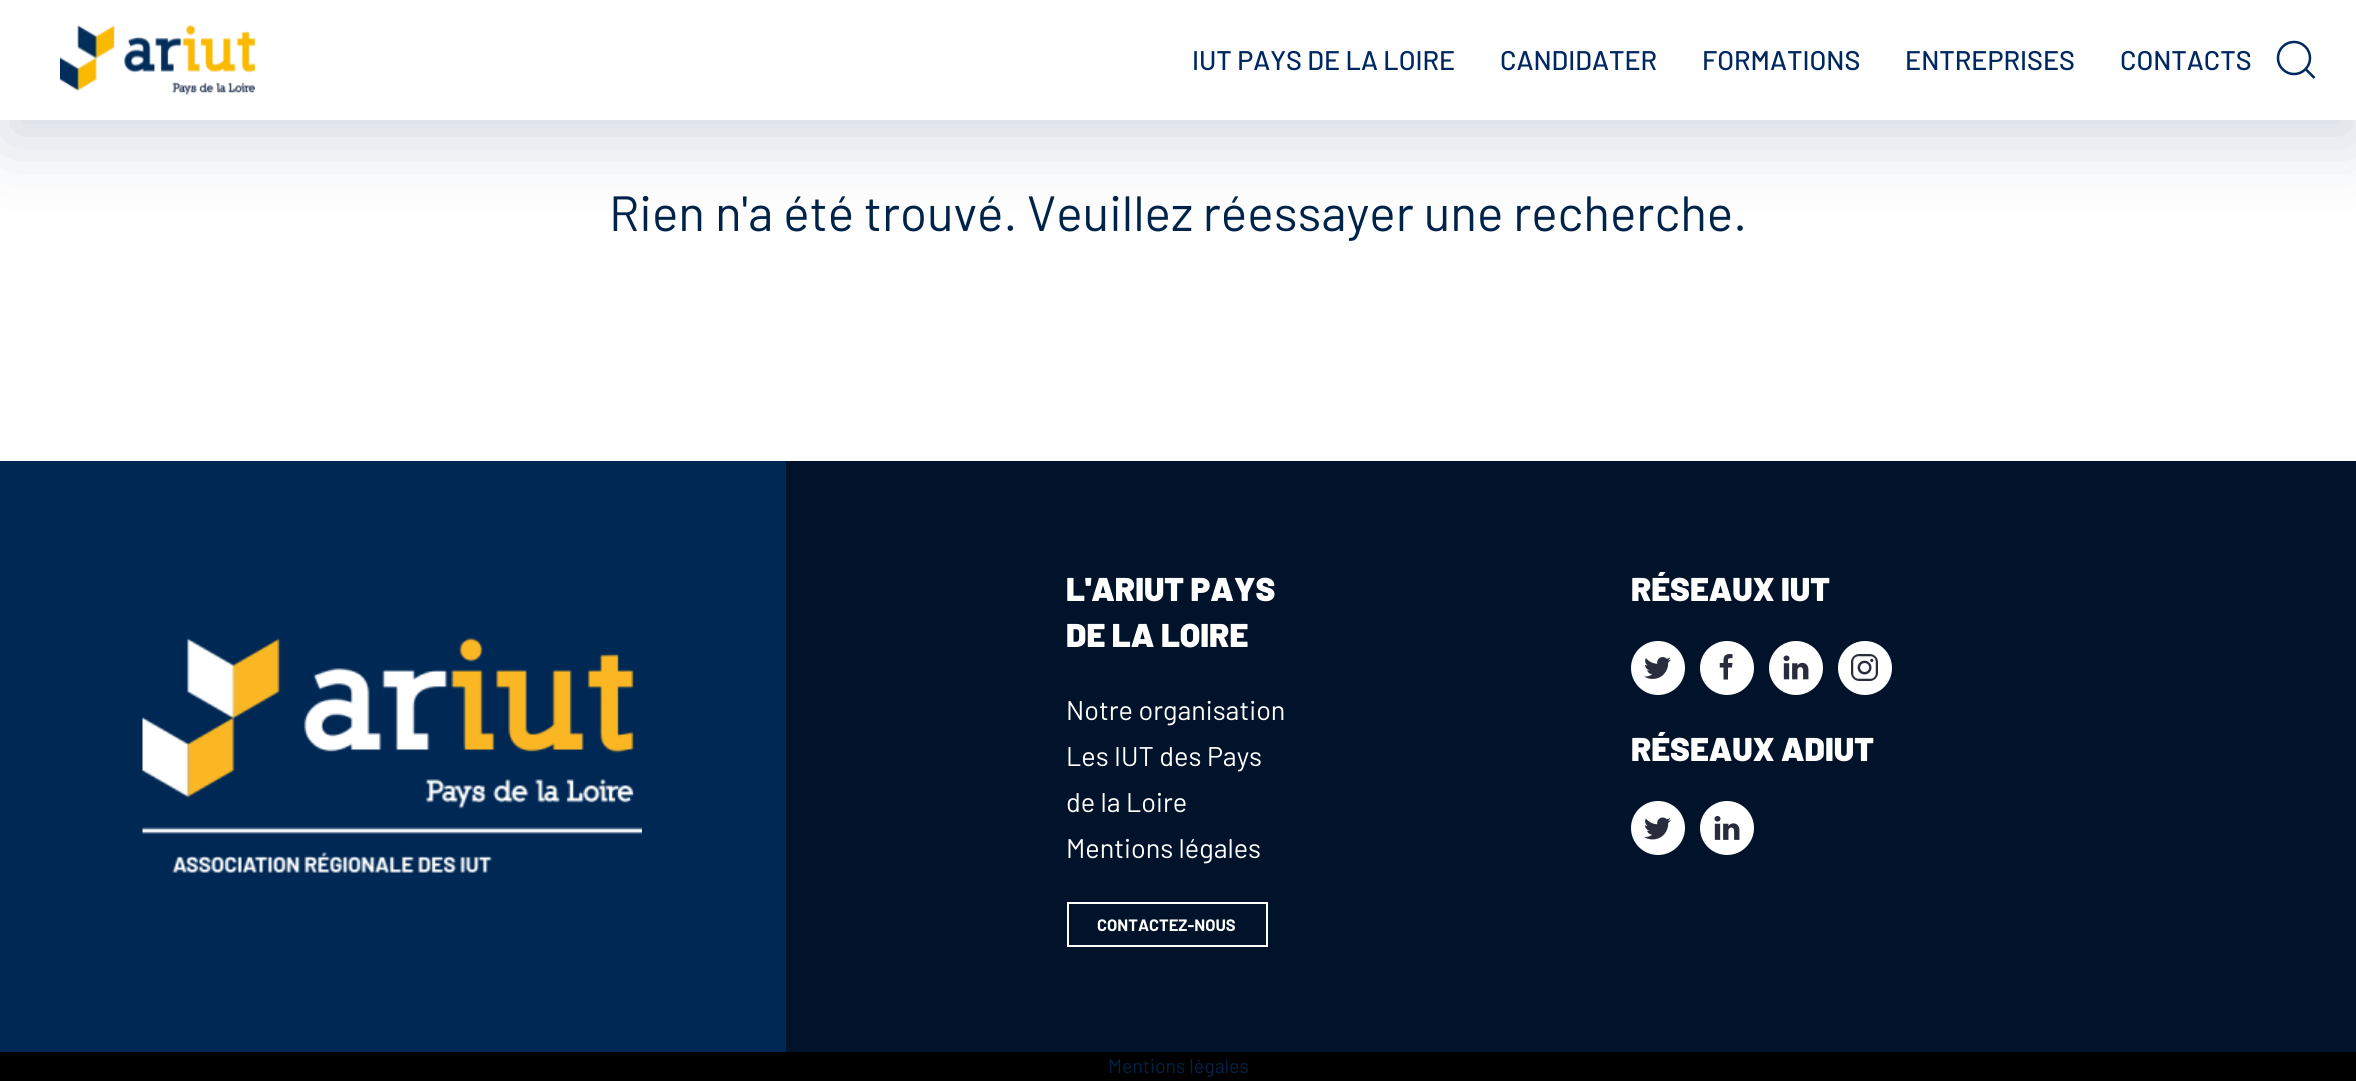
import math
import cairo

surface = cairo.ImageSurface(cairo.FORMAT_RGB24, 2356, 1081)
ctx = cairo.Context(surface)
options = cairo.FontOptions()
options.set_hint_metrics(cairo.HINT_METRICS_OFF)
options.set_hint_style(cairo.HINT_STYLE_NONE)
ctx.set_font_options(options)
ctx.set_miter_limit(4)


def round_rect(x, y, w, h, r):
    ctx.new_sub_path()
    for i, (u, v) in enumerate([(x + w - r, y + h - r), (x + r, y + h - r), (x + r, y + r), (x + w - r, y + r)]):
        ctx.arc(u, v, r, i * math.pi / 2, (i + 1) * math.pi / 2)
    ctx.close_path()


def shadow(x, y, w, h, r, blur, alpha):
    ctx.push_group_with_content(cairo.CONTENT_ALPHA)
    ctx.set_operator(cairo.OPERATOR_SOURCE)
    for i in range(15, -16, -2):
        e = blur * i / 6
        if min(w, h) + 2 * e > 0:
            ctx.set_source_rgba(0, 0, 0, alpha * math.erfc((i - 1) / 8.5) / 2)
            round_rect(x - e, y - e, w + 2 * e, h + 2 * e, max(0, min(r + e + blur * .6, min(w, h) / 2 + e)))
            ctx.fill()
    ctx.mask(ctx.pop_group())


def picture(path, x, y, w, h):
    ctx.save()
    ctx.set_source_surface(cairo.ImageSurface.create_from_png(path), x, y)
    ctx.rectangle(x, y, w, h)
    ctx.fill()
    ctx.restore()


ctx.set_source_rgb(1, 1, 1)
ctx.paint()
ctx.set_source_rgb(0, 0.157, 0.333)
shadow(3, 23, 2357, 120, 0, 37.5, 0.17)
ctx.set_source_rgb(1, 1, 1)
ctx.rectangle(0, 0, 2356, 120)
ctx.fill()
picture("img1.png", 60, 25, 195, 70)
ctx.select_font_face("Barlow Medium")
ctx.set_font_size(27)
ctx.set_source_rgb(0, 0.157, 0.376)
ctx.move_to(1192, 70)
ctx.show_text("IUT PAYS DE LA LOIRE")
ctx.move_to(1500, 70)
ctx.show_text("CANDIDATER")
ctx.move_to(1702, 70)
ctx.show_text("FORMATIONS")
ctx.move_to(1905, 70)
ctx.show_text("ENTREPRISES")
ctx.move_to(2120, 70)
ctx.show_text("CONTACTS")
ctx.new_path()
ctx.arc(2294, 58, 16, 0, 2 * math.pi)
ctx.set_line_width(2.5)
ctx.stroke()
ctx.new_path()
ctx.move_to(2305.5, 69)
ctx.line_to(2314.5, 78)
ctx.close_path()
ctx.stroke()
ctx.select_font_face("Barlow")
ctx.set_font_size(49.5)
ctx.set_source_rgb(0, 0.137, 0.286)
ctx.move_to(609, 231)
ctx.show_text("Rien n'a été trouvé. Veuillez réessayer une recherche.")
ctx.set_source_rgb(0, 0.157, 0.333)
ctx.rectangle(0, 461, 786, 591)
ctx.fill()
picture("img2.png", 142, 638, 500, 235)
ctx.set_source_rgb(0, 0.078, 0.165)
ctx.rectangle(786, 461, 1570, 591)
ctx.fill()
ctx.select_font_face("Barlow Black")
ctx.set_font_size(33)
ctx.set_source_rgb(1, 1, 1)
ctx.move_to(1066, 601)
ctx.show_text("L'ARIUT PAYS")
ctx.move_to(1066, 647)
ctx.show_text("DE LA LOIRE")
ctx.select_font_face("Barlow")
ctx.set_font_size(27)
ctx.move_to(1066, 720)
ctx.show_text("Notre organisation")
ctx.move_to(1066, 766)
ctx.show_text("Les IUT des Pays")
ctx.move_to(1066, 812)
ctx.show_text("de la Loire")
ctx.move_to(1066, 858)
ctx.show_text("Mentions légales")
ctx.rectangle(1068, 903, 199, 43)
ctx.set_line_width(2)
ctx.stroke()
ctx.select_font_face("Barlow", cairo.FONT_SLANT_NORMAL, cairo.FONT_WEIGHT_BOLD)
ctx.set_font_size(16.5)
ctx.move_to(1097, 931)
ctx.show_text("CONTACTEZ-NOUS")
ctx.select_font_face("Barlow Black")
ctx.set_font_size(33)
ctx.move_to(1631, 601)
ctx.show_text("RÉSEAUX IUT")
ctx.new_path()
ctx.arc(1658, 668, 27, 0, 2 * math.pi)
ctx.fill()
picture("img3.png", 1644, 657, 27, 22)
ctx.arc(1727, 668, 27, 0, 2 * math.pi)
ctx.fill()
picture("img4.png", 1719, 654, 14, 26)
ctx.arc(1796, 668, 27, 0, 2 * math.pi)
ctx.fill()
picture("img5.png", 1783, 655, 26, 25)
ctx.arc(1865, 668, 27, 0, 2 * math.pi)
ctx.fill()
picture("img6.png", 1851, 654, 27, 27)
ctx.move_to(1631, 761)
ctx.show_text("RÉSEAUX ADIUT")
ctx.new_path()
ctx.arc(1658, 828, 27, 0, 2 * math.pi)
ctx.fill()
picture("img7.png", 1644, 817, 27, 23)
ctx.arc(1727, 828, 27, 0, 2 * math.pi)
ctx.fill()
picture("img8.png", 1714, 816, 26, 24)
ctx.set_source_rgb(0, 0, 0)
ctx.rectangle(0, 1052, 2356, 29)
ctx.fill()
ctx.select_font_face("Barlow")
ctx.set_font_size(19.5)
ctx.set_source_rgb(0, 0.137, 0.286)
ctx.move_to(1108, 1073)
ctx.show_text("Mentions légales")
surface.write_to_png("page.png")
